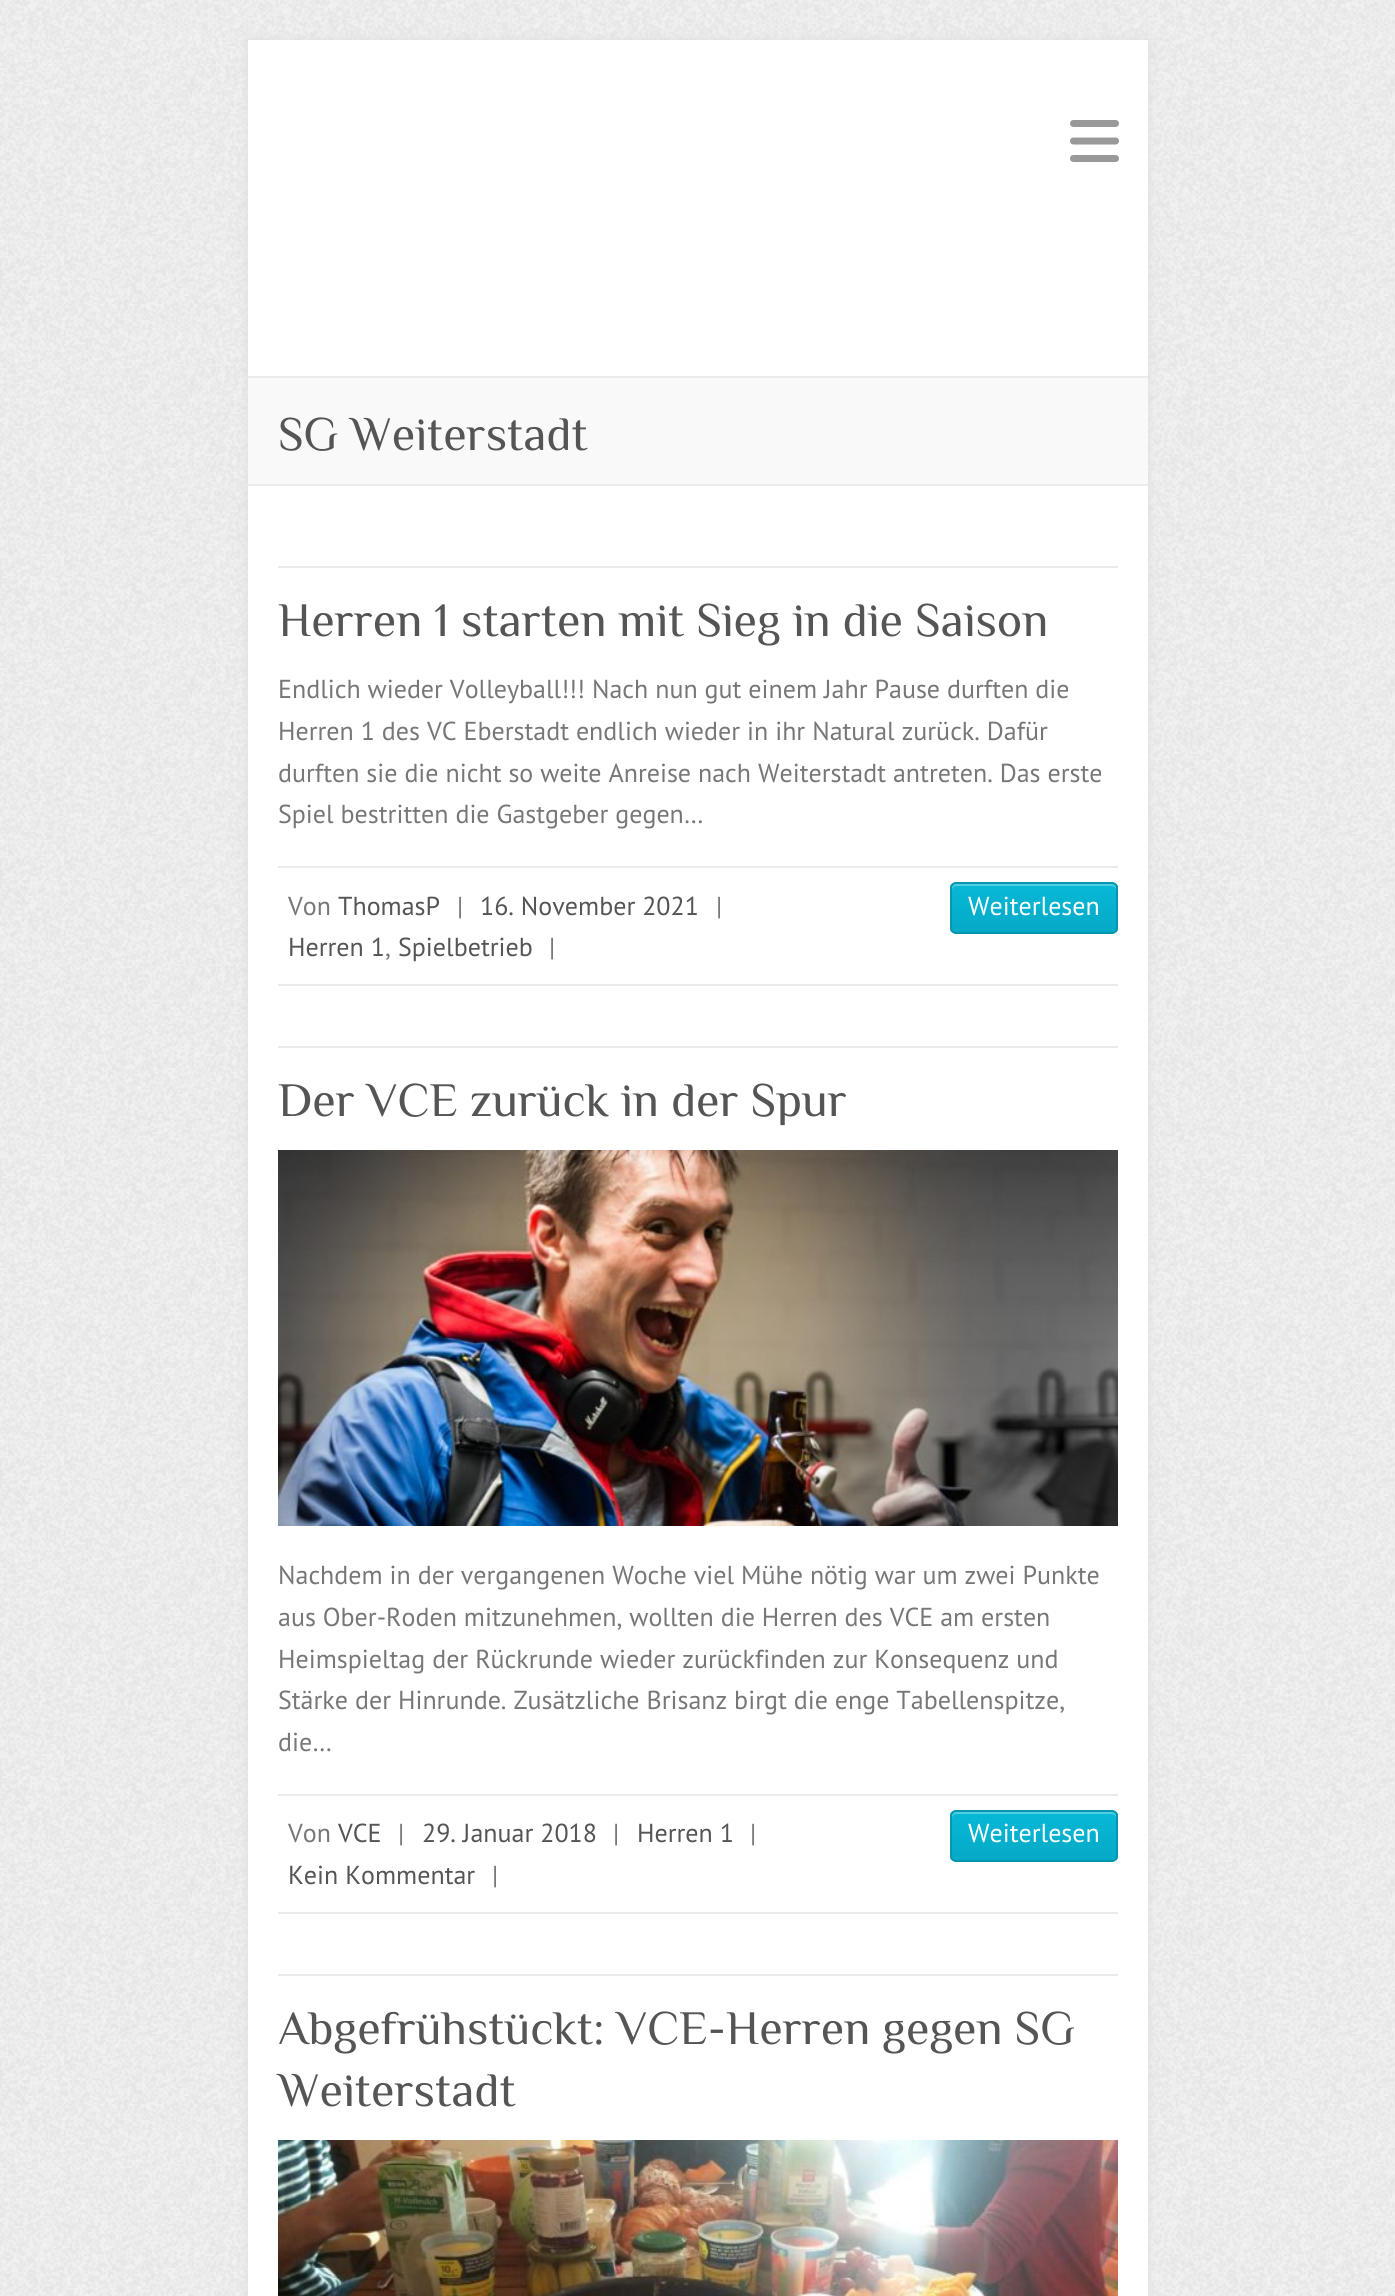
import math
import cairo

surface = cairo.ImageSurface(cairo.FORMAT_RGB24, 1395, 2296)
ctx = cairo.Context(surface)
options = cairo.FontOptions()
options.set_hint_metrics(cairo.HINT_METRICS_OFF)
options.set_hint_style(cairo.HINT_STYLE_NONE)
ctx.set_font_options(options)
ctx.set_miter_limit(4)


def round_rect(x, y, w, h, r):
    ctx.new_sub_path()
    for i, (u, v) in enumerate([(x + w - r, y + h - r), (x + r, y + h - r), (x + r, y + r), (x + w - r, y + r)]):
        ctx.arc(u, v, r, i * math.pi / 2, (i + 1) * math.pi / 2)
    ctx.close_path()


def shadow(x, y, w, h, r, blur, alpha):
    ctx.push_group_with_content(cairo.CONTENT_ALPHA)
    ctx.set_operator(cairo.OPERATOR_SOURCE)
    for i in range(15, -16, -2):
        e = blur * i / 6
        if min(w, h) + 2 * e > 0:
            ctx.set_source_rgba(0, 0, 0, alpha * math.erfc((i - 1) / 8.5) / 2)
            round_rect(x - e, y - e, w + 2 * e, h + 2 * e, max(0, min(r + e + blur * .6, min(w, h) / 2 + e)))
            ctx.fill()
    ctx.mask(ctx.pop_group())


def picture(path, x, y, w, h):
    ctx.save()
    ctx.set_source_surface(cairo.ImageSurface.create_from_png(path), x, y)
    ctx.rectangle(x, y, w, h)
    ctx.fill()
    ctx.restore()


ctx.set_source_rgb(1, 1, 1)
ctx.paint()
picture("img1.png", 0, 0, 1395, 2296)
ctx.set_source_rgb(0.867, 0.867, 0.867)
shadow(248, 40, 900, 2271, 0, 5, 1)
ctx.set_source_rgb(1, 1, 1)
ctx.rectangle(248, 40, 900, 2256)
ctx.fill()
picture("img2.png", 1070, 120, 49, 42)
ctx.set_source_rgb(0.918, 0.918, 0.918)
ctx.rectangle(248, 376, 900, 2)
ctx.fill()
ctx.set_source_rgb(0.976, 0.976, 0.976)
ctx.rectangle(248, 378, 900, 106)
ctx.fill()
ctx.set_source_rgb(0.918, 0.918, 0.918)
ctx.rectangle(248, 484, 900, 2)
ctx.fill()
ctx.select_font_face("Philosopher")
ctx.set_font_size(48)
ctx.set_source_rgb(0.333, 0.333, 0.333)
ctx.move_to(278, 450)
ctx.show_text("SG Weiterstadt")
ctx.set_source_rgb(0.918, 0.918, 0.918)
ctx.rectangle(278, 566, 840, 2)
ctx.fill()
ctx.set_source_rgb(0.333, 0.333, 0.333)
ctx.move_to(278, 636)
ctx.show_text("Herren 1 starten mit Sieg in die Saison")
ctx.select_font_face("PT Sans")
ctx.set_font_size(26)
ctx.set_source_rgb(0.467, 0.467, 0.467)
ctx.move_to(278, 698)
ctx.show_text("Endlich wieder Volleyball!!! Nach nun gut einem Jahr Pause durften die")
ctx.move_to(278, 740)
ctx.show_text("Herren 1 des VC Eberstadt endlich wieder in ihr Natural zurück. Dafür")
ctx.move_to(278, 782)
ctx.show_text("durften sie die nicht so weite Anreise nach Weiterstadt antreten. Das erste")
ctx.move_to(278, 823)
ctx.show_text("Spiel bestritten die Gastgeber gegen…")
ctx.set_source_rgb(0.918, 0.918, 0.918)
ctx.rectangle(278, 866, 840, 2)
ctx.fill()
ctx.rectangle(278, 984, 840, 2)
ctx.fill()
ctx.set_source_rgb(0.467, 0.467, 0.467)
ctx.move_to(288, 915)
ctx.show_text("Von")
ctx.set_source_rgb(0.333, 0.333, 0.333)
ctx.move_to(338, 915)
ctx.show_text("ThomasP")
ctx.set_source_rgb(0.467, 0.467, 0.467)
ctx.move_to(457, 915)
ctx.show_text("|")
ctx.set_source_rgb(0.333, 0.333, 0.333)
ctx.move_to(480, 915)
ctx.show_text("16. November 2021")
ctx.set_source_rgb(0.467, 0.467, 0.467)
ctx.move_to(716, 915)
ctx.show_text("|")
ctx.set_source_rgb(0.333, 0.333, 0.333)
ctx.move_to(288, 956)
ctx.show_text("Herren 1")
ctx.set_source_rgb(0.467, 0.467, 0.467)
ctx.move_to(385, 956)
ctx.show_text(",")
ctx.set_source_rgb(0.333, 0.333, 0.333)
ctx.move_to(398, 956)
ctx.show_text("Spielbetrieb")
ctx.set_source_rgb(0.467, 0.467, 0.467)
ctx.move_to(549, 956)
ctx.show_text("|")
ctx.save()
round_rect(950, 882, 168, 52, 6)
ctx.clip()
gradient = cairo.LinearGradient(1034, 884, 1034, 932)
gradient.add_color_stop_rgba(0, 0.024, 0.722, 0.843, 1)
gradient.add_color_stop_rgba(1, 0.02, 0.667, 0.776, 1)
ctx.set_source(gradient)
ctx.rectangle(950, 884, 168, 48)
ctx.fill()
ctx.restore()
ctx.set_source_rgb(0.318, 0.804, 0.89)
ctx.new_path()
ctx.move_to(956, 886)
ctx.line_to(1112, 886)
ctx.curve_to(1114, 886, 1116, 888, 1116, 890)
ctx.line_to(1116, 888)
ctx.curve_to(1116, 886, 1114, 884, 1112, 884)
ctx.line_to(956, 884)
ctx.curve_to(954, 884, 952, 886, 952, 888)
ctx.line_to(952, 890)
ctx.curve_to(952, 888, 954, 886, 956, 886)
ctx.close_path()
ctx.fill()
round_rect(951, 883, 166, 50, 5)
ctx.set_source_rgb(0.02, 0.588, 0.686)
ctx.stroke()
ctx.set_source_rgb(1, 1, 1)
ctx.move_to(968, 915)
ctx.show_text("Weiterlesen")
ctx.set_source_rgb(0.918, 0.918, 0.918)
ctx.rectangle(278, 1046, 840, 2)
ctx.fill()
ctx.select_font_face("Philosopher")
ctx.set_font_size(48)
ctx.set_source_rgb(0.333, 0.333, 0.333)
ctx.move_to(278, 1116)
ctx.show_text("Der VCE zurück in der Spur")
picture("img3.png", 278, 1150, 840, 376)
ctx.select_font_face("PT Sans")
ctx.set_font_size(26)
ctx.set_source_rgb(0.467, 0.467, 0.467)
ctx.move_to(278, 1584)
ctx.show_text("Nachdem in der vergangenen Woche viel Mühe nötig war um zwei Punkte")
ctx.move_to(278, 1626)
ctx.show_text("aus Ober-Roden mitzunehmen, wollten die Herren des VCE am ersten")
ctx.move_to(278, 1668)
ctx.show_text("Heimspieltag der Rückrunde wieder zurückfinden zur Konsequenz und")
ctx.move_to(278, 1709)
ctx.show_text("Stärke der Hinrunde. Zusätzliche Brisanz birgt die enge Tabellenspitze,")
ctx.move_to(278, 1751)
ctx.show_text("die…")
ctx.set_source_rgb(0.918, 0.918, 0.918)
ctx.rectangle(278, 1794, 840, 2)
ctx.fill()
ctx.rectangle(278, 1912, 840, 2)
ctx.fill()
ctx.set_source_rgb(0.467, 0.467, 0.467)
ctx.move_to(288, 1842)
ctx.show_text("Von")
ctx.set_source_rgb(0.333, 0.333, 0.333)
ctx.move_to(338, 1842)
ctx.show_text("VCE")
ctx.set_source_rgb(0.467, 0.467, 0.467)
ctx.move_to(398, 1842)
ctx.show_text("|")
ctx.set_source_rgb(0.333, 0.333, 0.333)
ctx.move_to(422, 1842)
ctx.show_text("29. Januar 2018")
ctx.set_source_rgb(0.467, 0.467, 0.467)
ctx.move_to(613, 1842)
ctx.show_text("|")
ctx.set_source_rgb(0.333, 0.333, 0.333)
ctx.move_to(637, 1842)
ctx.show_text("Herren 1")
ctx.set_source_rgb(0.467, 0.467, 0.467)
ctx.move_to(750, 1842)
ctx.show_text("|")
ctx.set_source_rgb(0.333, 0.333, 0.333)
ctx.move_to(288, 1884)
ctx.show_text("Kein Kommentar")
ctx.set_source_rgb(0.467, 0.467, 0.467)
ctx.move_to(492, 1884)
ctx.show_text("|")
ctx.save()
round_rect(950, 1810, 168, 52, 6)
ctx.clip()
gradient = cairo.LinearGradient(1034, 1812, 1034, 1860)
gradient.add_color_stop_rgba(0, 0.024, 0.722, 0.843, 1)
gradient.add_color_stop_rgba(1, 0.02, 0.667, 0.776, 1)
ctx.set_source(gradient)
ctx.rectangle(950, 1812, 168, 48)
ctx.fill()
ctx.restore()
ctx.set_source_rgb(0.318, 0.804, 0.89)
ctx.new_path()
ctx.move_to(956, 1814)
ctx.line_to(1112, 1814)
ctx.curve_to(1114, 1814, 1116, 1816, 1116, 1818)
ctx.line_to(1116, 1816)
ctx.curve_to(1116, 1814, 1114, 1812, 1112, 1812)
ctx.line_to(956, 1812)
ctx.curve_to(954, 1812, 952, 1814, 952, 1816)
ctx.line_to(952, 1818)
ctx.curve_to(952, 1816, 954, 1814, 956, 1814)
ctx.close_path()
ctx.fill()
round_rect(951, 1811, 166, 50, 5)
ctx.set_source_rgb(0.02, 0.588, 0.686)
ctx.stroke()
ctx.set_source_rgb(1, 1, 1)
ctx.move_to(968, 1842)
ctx.show_text("Weiterlesen")
ctx.set_source_rgb(0.918, 0.918, 0.918)
ctx.rectangle(278, 1974, 840, 2)
ctx.fill()
ctx.select_font_face("Philosopher")
ctx.set_font_size(48)
ctx.set_source_rgb(0.333, 0.333, 0.333)
ctx.move_to(278, 2044)
ctx.show_text("Abgefrühstückt: VCE-Herren gegen SG")
ctx.move_to(278, 2106)
ctx.show_text("Weiterstadt")
picture("img4.png", 278, 2140, 840, 156)
surface.write_to_png("page.png")
